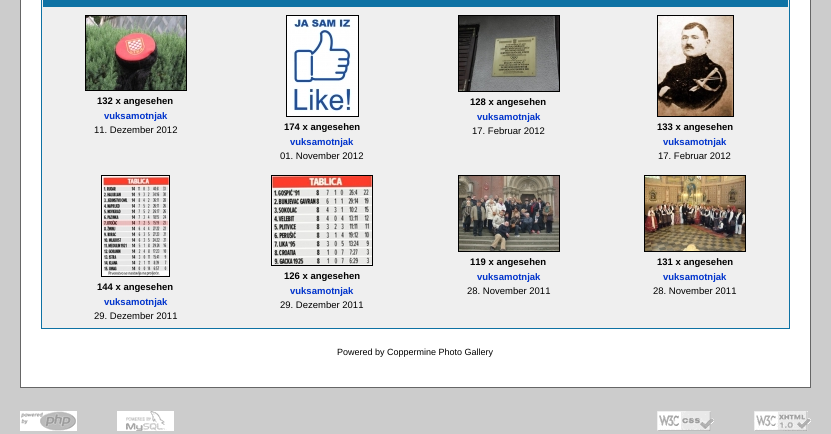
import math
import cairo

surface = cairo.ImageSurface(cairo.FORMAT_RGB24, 831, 434)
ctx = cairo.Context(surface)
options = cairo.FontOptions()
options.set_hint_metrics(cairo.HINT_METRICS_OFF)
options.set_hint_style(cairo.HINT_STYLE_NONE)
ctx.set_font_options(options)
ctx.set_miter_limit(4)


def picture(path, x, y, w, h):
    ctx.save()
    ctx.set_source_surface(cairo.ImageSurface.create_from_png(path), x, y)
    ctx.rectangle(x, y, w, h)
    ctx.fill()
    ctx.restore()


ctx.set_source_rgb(0.8, 0.8, 0.8)
ctx.paint()
ctx.set_source_rgb(1, 1, 1)
ctx.rectangle(20.5, -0.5, 790, 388)
ctx.fill_preserve()
ctx.set_source_rgb(0.4, 0.4, 0.4)
ctx.set_line_width(1)
ctx.stroke()
ctx.set_source_rgb(0.937, 0.937, 0.937)
ctx.rectangle(41.5, -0.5, 748, 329)
ctx.fill_preserve()
ctx.set_source_rgb(0.055, 0.447, 0.643)
ctx.stroke()
ctx.rectangle(43, 0, 745, 7)
ctx.fill()
ctx.rectangle(85.5, 15.5, 101, 75)
ctx.set_source_rgb(0, 0, 0)
ctx.stroke()
picture("img1.png", 86, 16, 100, 74)
ctx.select_font_face("Liberation Sans", cairo.FONT_SLANT_NORMAL, cairo.FONT_WEIGHT_BOLD)
ctx.set_font_size(9.5)
ctx.move_to(97, 104)
ctx.show_text("132 x angesehen")
ctx.set_source_rgb(0, 0.2, 0.8)
ctx.move_to(104, 119)
ctx.show_text("vuksamotnjak")
ctx.select_font_face("Liberation Sans")
ctx.set_source_rgb(0, 0, 0)
ctx.move_to(94, 133)
ctx.show_text("11. Dezember 2012")
ctx.rectangle(458.5, 15.5, 101, 76)
ctx.stroke()
picture("img2.png", 459, 16, 100, 75)
ctx.select_font_face("Liberation Sans", cairo.FONT_SLANT_NORMAL, cairo.FONT_WEIGHT_BOLD)
ctx.move_to(470, 105)
ctx.show_text("128 x angesehen")
ctx.set_source_rgb(0, 0.2, 0.8)
ctx.move_to(477, 120)
ctx.show_text("vuksamotnjak")
ctx.select_font_face("Liberation Sans")
ctx.set_source_rgb(0, 0, 0)
ctx.move_to(472, 134)
ctx.show_text("17. Februar 2012")
ctx.rectangle(286.5, 15.5, 72, 101)
ctx.stroke()
picture("img3.png", 287, 16, 71, 100)
ctx.select_font_face("Liberation Sans", cairo.FONT_SLANT_NORMAL, cairo.FONT_WEIGHT_BOLD)
ctx.move_to(284, 130)
ctx.show_text("174 x angesehen")
ctx.set_source_rgb(0, 0.2, 0.8)
ctx.move_to(290, 145)
ctx.show_text("vuksamotnjak")
ctx.select_font_face("Liberation Sans")
ctx.set_source_rgb(0, 0, 0)
ctx.move_to(280, 159)
ctx.show_text("01. November 2012")
ctx.rectangle(657.5, 15.5, 76, 101)
ctx.stroke()
picture("img4.png", 658, 16, 75, 100)
ctx.select_font_face("Liberation Sans", cairo.FONT_SLANT_NORMAL, cairo.FONT_WEIGHT_BOLD)
ctx.move_to(657, 130)
ctx.show_text("133 x angesehen")
ctx.set_source_rgb(0, 0.2, 0.8)
ctx.move_to(663, 145)
ctx.show_text("vuksamotnjak")
ctx.select_font_face("Liberation Sans")
ctx.set_source_rgb(0, 0, 0)
ctx.move_to(658, 159)
ctx.show_text("17. Februar 2012")
ctx.rectangle(101.5, 175.5, 68, 101)
ctx.stroke()
picture("img5.png", 102, 176, 67, 100)
ctx.select_font_face("Liberation Sans", cairo.FONT_SLANT_NORMAL, cairo.FONT_WEIGHT_BOLD)
ctx.move_to(97, 290)
ctx.show_text("144 x angesehen")
ctx.set_source_rgb(0, 0.2, 0.8)
ctx.move_to(104, 305)
ctx.show_text("vuksamotnjak")
ctx.select_font_face("Liberation Sans")
ctx.set_source_rgb(0, 0, 0)
ctx.move_to(94, 319)
ctx.show_text("29. Dezember 2011")
ctx.rectangle(271.5, 175.5, 101, 90)
ctx.stroke()
picture("img6.png", 272, 176, 100, 89)
ctx.select_font_face("Liberation Sans", cairo.FONT_SLANT_NORMAL, cairo.FONT_WEIGHT_BOLD)
ctx.move_to(284, 279)
ctx.show_text("126 x angesehen")
ctx.set_source_rgb(0, 0.2, 0.8)
ctx.move_to(290, 294)
ctx.show_text("vuksamotnjak")
ctx.select_font_face("Liberation Sans")
ctx.set_source_rgb(0, 0, 0)
ctx.move_to(280, 308)
ctx.show_text("29. Dezember 2011")
ctx.rectangle(458.5, 175.5, 101, 76)
ctx.stroke()
picture("img7.png", 459, 176, 100, 75)
ctx.select_font_face("Liberation Sans", cairo.FONT_SLANT_NORMAL, cairo.FONT_WEIGHT_BOLD)
ctx.move_to(470, 265)
ctx.show_text("119 x angesehen")
ctx.set_source_rgb(0, 0.2, 0.8)
ctx.move_to(477, 280)
ctx.show_text("vuksamotnjak")
ctx.select_font_face("Liberation Sans")
ctx.set_source_rgb(0, 0, 0)
ctx.move_to(467, 294)
ctx.show_text("28. November 2011")
ctx.rectangle(644.5, 175.5, 101, 76)
ctx.stroke()
picture("img8.png", 645, 176, 100, 75)
ctx.select_font_face("Liberation Sans", cairo.FONT_SLANT_NORMAL, cairo.FONT_WEIGHT_BOLD)
ctx.move_to(657, 265)
ctx.show_text("131 x angesehen")
ctx.set_source_rgb(0, 0.2, 0.8)
ctx.move_to(663, 280)
ctx.show_text("vuksamotnjak")
ctx.select_font_face("Liberation Sans")
ctx.set_source_rgb(0, 0, 0)
ctx.move_to(653, 294)
ctx.show_text("28. November 2011")
ctx.set_font_size(9)
ctx.move_to(337, 355)
ctx.show_text("Powered by Coppermine Photo Gallery")
picture("img9.png", 20, 411, 57, 20)
picture("img10.png", 117, 411, 57, 20)
picture("img11.png", 657, 411, 57, 20)
picture("img12.png", 754, 411, 57, 20)
surface.write_to_png("page.png")
